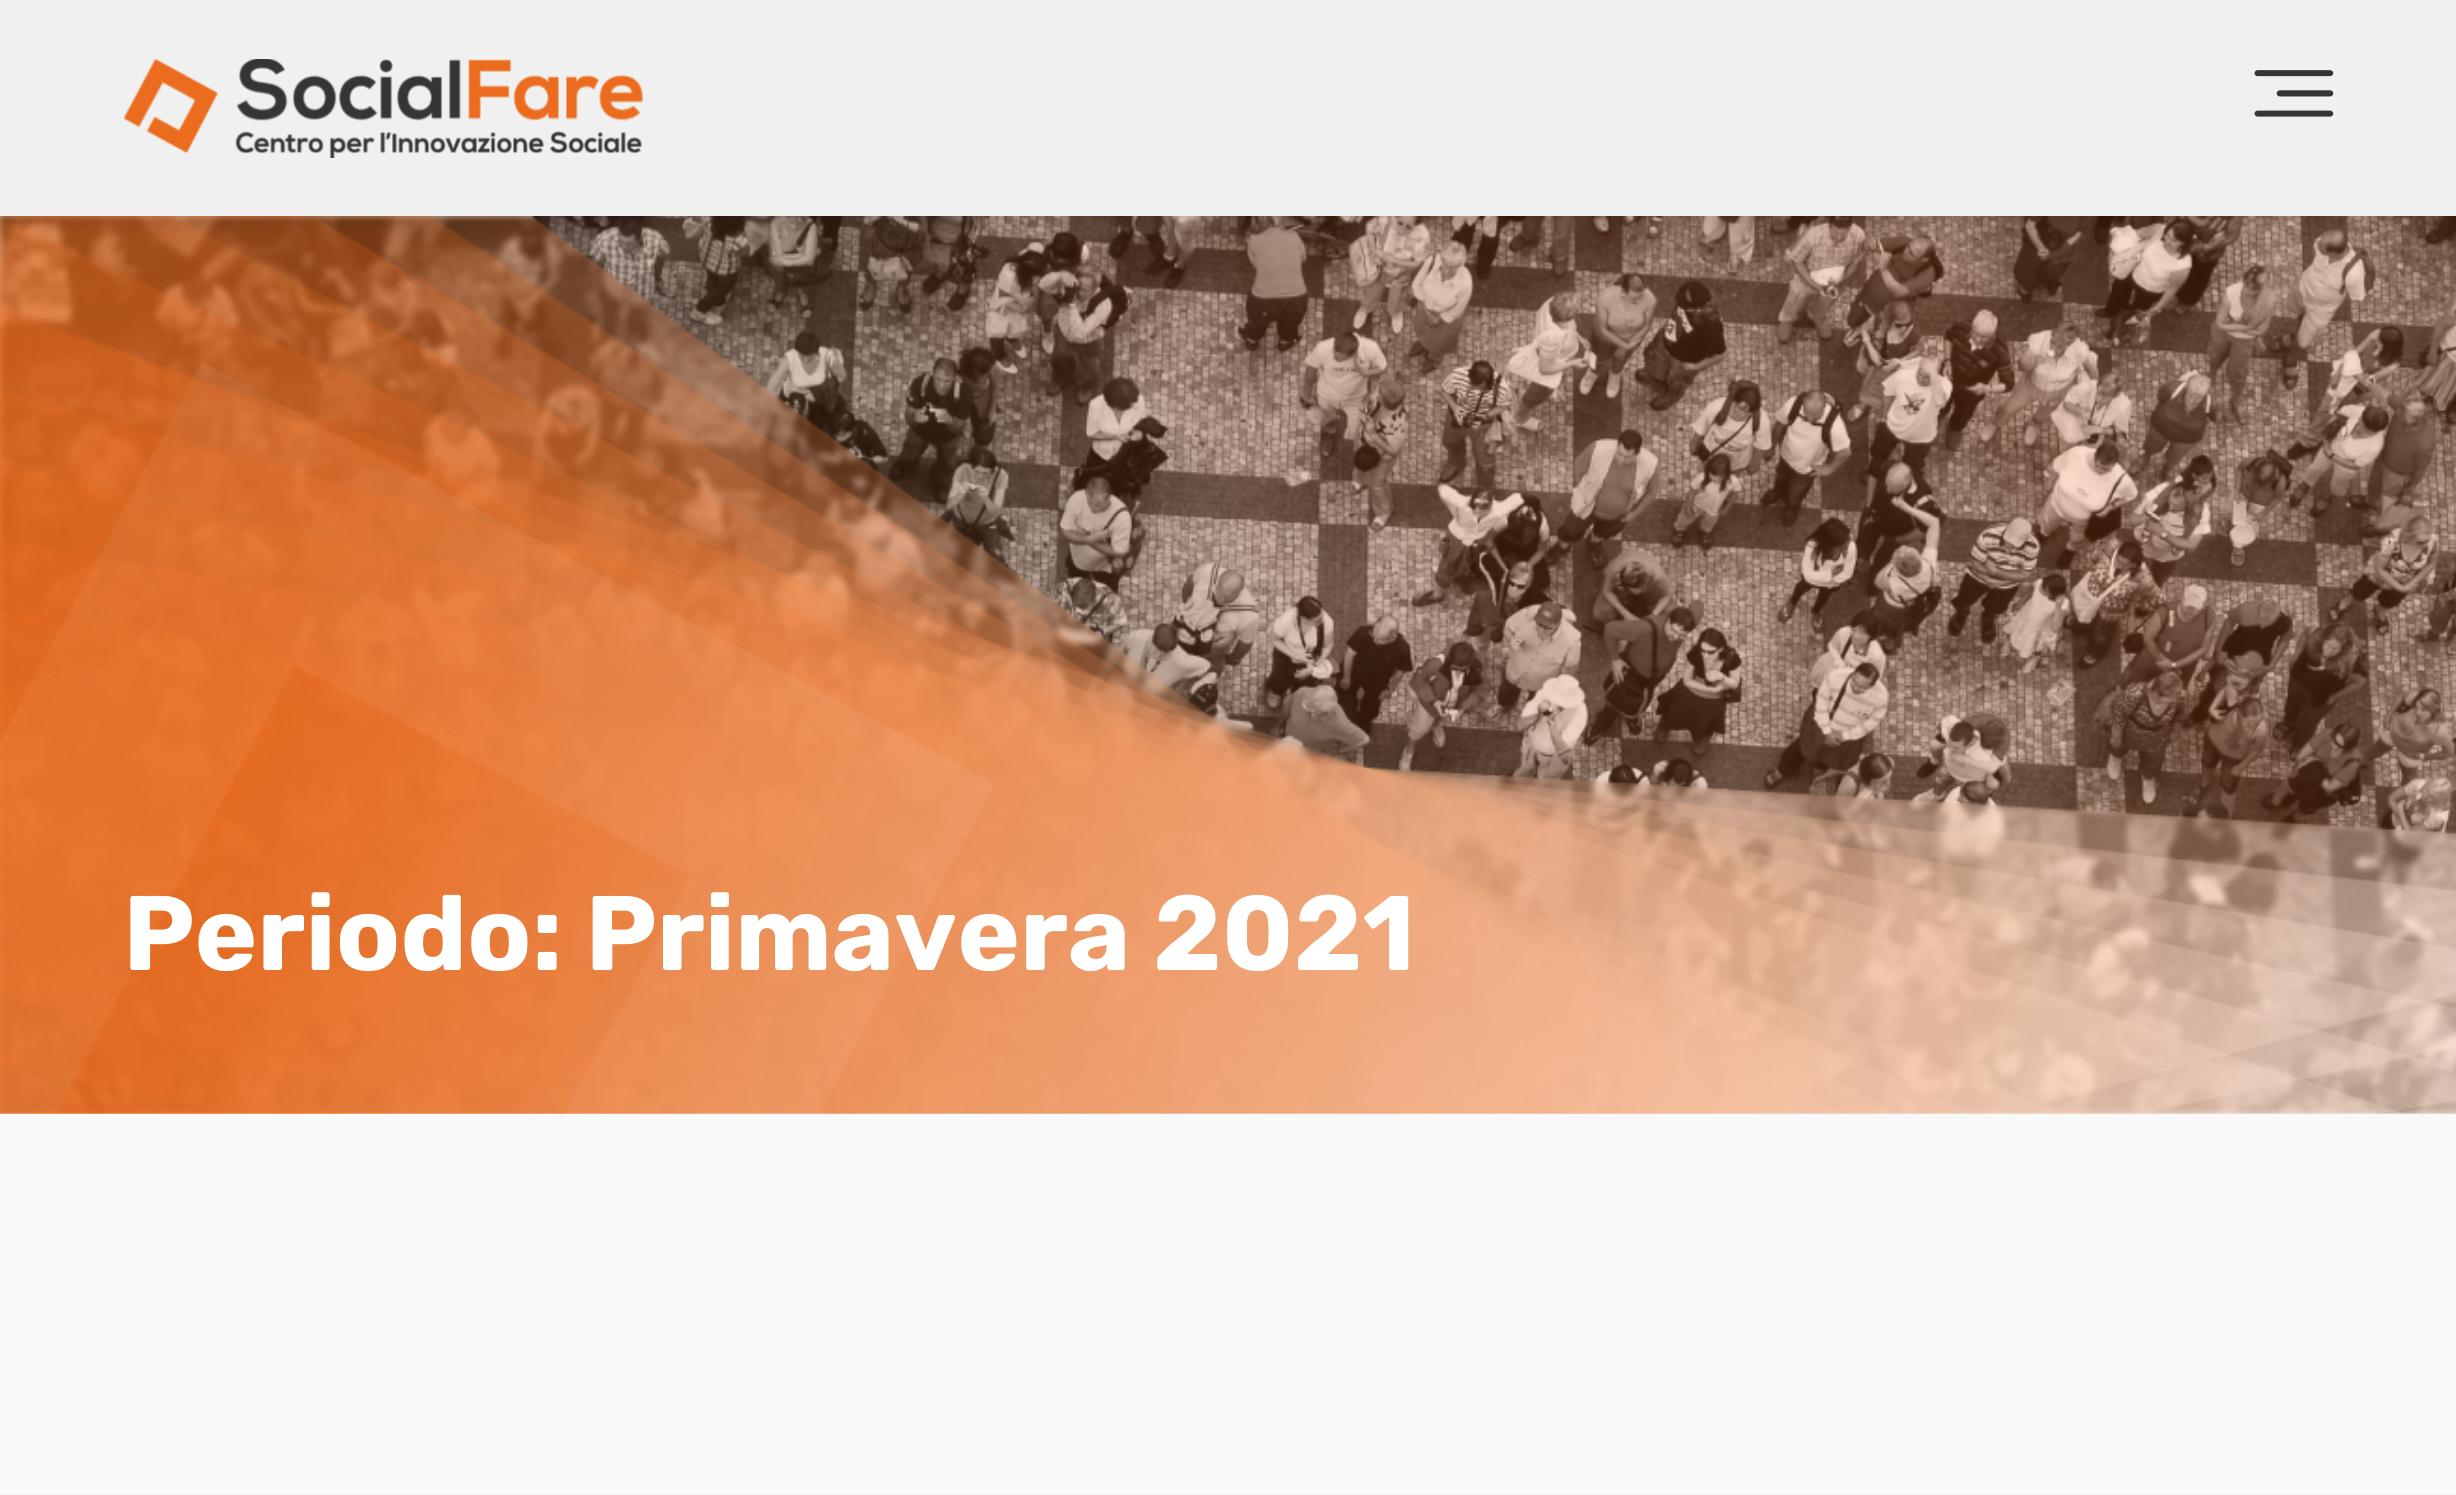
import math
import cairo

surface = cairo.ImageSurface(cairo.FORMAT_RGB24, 2456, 1495)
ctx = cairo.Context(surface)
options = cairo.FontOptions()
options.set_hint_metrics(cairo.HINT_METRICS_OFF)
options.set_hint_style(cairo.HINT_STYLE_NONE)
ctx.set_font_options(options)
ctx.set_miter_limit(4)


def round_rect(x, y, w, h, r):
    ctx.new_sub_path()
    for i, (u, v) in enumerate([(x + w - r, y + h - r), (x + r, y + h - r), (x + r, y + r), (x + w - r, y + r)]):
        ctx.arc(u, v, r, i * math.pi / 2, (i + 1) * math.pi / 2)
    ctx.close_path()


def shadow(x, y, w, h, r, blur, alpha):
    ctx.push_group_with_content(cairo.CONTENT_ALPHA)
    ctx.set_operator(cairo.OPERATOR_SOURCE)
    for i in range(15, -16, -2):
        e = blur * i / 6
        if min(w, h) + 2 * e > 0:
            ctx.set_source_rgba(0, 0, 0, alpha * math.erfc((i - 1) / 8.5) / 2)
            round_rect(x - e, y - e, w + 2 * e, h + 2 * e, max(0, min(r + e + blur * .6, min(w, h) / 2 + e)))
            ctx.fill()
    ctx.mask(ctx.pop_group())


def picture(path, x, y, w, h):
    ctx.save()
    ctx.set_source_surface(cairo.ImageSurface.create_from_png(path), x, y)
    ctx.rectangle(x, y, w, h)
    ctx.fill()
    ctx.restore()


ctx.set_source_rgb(0.976, 0.976, 0.976)
ctx.paint()
picture("img3.png", 0, 216, 2456, 898)
ctx.set_source_rgb(0, 0, 0)
shadow(0, 2, 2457, 216, 0, 11, 0.16)
ctx.set_source_rgb(0.941, 0.941, 0.941)
ctx.rectangle(0, 0, 2456, 216)
ctx.fill()
picture("img1.png", 123, 59, 521, 99)
picture("img2.png", 2254, 70, 80, 47)
ctx.select_font_face("Rubik", cairo.FONT_SLANT_NORMAL, cairo.FONT_WEIGHT_BOLD)
ctx.set_font_size(105.8)
ctx.set_source_rgb(1, 1, 1)
ctx.move_to(123, 970)
ctx.show_text("Periodo: Primavera 2021")
ctx.set_source_rgb(0.953, 0.953, 0.953)
ctx.rectangle(0, 1494, 2456, 1)
ctx.fill()
surface.write_to_png("page.png")
